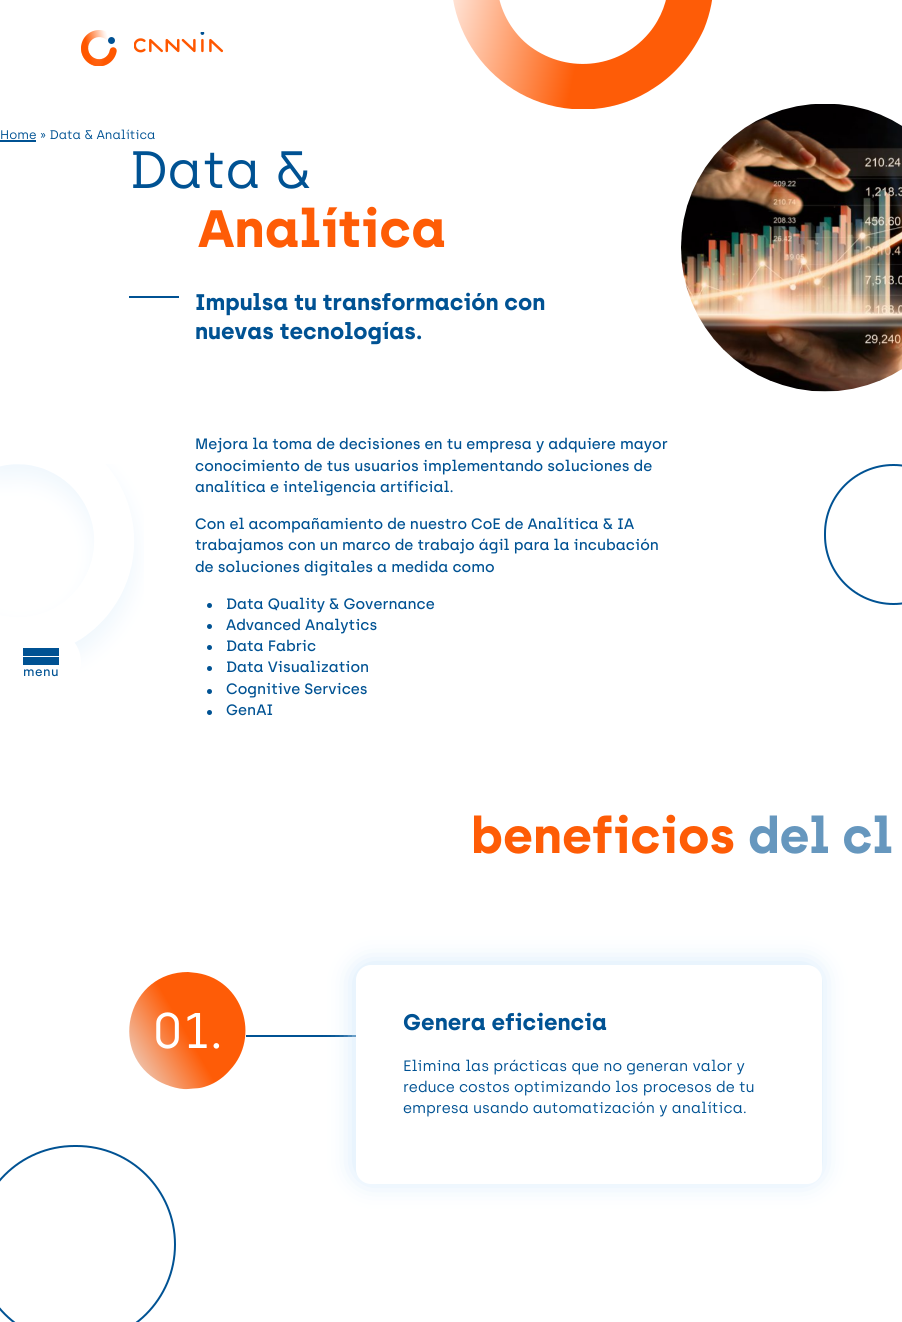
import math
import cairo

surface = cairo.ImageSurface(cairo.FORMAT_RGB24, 902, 1322)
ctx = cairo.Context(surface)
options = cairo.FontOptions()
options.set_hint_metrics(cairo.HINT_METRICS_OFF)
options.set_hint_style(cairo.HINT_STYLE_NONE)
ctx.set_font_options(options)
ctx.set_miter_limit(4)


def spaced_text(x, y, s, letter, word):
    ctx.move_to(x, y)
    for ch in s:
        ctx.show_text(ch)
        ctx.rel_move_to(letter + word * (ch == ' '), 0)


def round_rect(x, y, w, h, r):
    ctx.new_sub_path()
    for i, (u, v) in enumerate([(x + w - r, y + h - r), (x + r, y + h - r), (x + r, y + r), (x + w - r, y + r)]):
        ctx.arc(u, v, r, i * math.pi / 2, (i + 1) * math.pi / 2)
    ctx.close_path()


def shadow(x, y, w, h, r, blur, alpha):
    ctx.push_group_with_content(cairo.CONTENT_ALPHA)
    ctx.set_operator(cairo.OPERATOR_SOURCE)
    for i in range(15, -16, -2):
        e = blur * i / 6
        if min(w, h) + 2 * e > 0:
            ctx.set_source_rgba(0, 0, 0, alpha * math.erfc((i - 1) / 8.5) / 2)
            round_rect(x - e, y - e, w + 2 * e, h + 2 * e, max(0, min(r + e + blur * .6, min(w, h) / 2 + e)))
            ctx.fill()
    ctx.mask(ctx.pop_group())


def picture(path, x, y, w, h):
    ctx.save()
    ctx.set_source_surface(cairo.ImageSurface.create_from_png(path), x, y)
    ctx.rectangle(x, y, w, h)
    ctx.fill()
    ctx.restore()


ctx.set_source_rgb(1, 1, 1)
ctx.paint()
gradient = cairo.LinearGradient(691, 31, 458, -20)
gradient.add_color_stop_rgba(0.44, 0.996, 0.361, 0.027, 1)
gradient.add_color_stop_rgba(1, 1, 0.886, 0.831, 1)
ctx.set_source(gradient)
ctx.new_path()
ctx.move_to(527, 44)
ctx.curve_to(493, 15, 487, -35, 512, -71)
ctx.line_to(461, -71)
ctx.curve_to(427, 12, 486, 102, 572, 109)
ctx.line_to(594, 109)
ctx.curve_to(616, 107, 636, 100, 654, 88)
ctx.curve_to(676, 74, 693, 53, 704, 29)
ctx.curve_to(717, -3, 717, -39, 705, -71)
ctx.line_to(653, -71)
ctx.curve_to(675, -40, 674, 3, 649, 33)
ctx.curve_to(618, 70, 564, 74, 527, 44)
ctx.close_path()
ctx.fill()
ctx.select_font_face("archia")
ctx.set_font_size(12.5)
ctx.set_source_rgb(0, 0.322, 0.576)
ctx.move_to(0, 139)
ctx.show_text("Home » Data & Analítica")
ctx.rectangle(0, 140, 36, 2)
ctx.fill()
picture("img1.png", 0, 464, 144, 215)
ctx.set_font_size(52.5)
ctx.move_to(129, 188)
ctx.show_text("Data &")
ctx.select_font_face("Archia", cairo.FONT_SLANT_NORMAL, cairo.FONT_WEIGHT_BOLD)
ctx.set_source_rgb(0.996, 0.361, 0.027)
ctx.move_to(198, 247)
ctx.show_text("Analítica")
picture("img2.png", 681, 104, 221, 288)
ctx.set_source_rgb(0, 0.322, 0.576)
ctx.rectangle(129, 296, 50, 2)
ctx.fill()
ctx.set_font_size(22.6)
ctx.move_to(195, 310)
ctx.show_text("Impulsa tu transformación con")
ctx.move_to(195, 339)
ctx.show_text("nuevas tecnologías.")
ctx.select_font_face("Archia Medium")
ctx.set_font_size(15.05)
ctx.move_to(195, 449)
ctx.show_text("Mejora la toma de decisiones en tu empresa y adquiere mayor")
ctx.move_to(195, 471)
ctx.show_text("conocimiento de tus usuarios implementando soluciones de")
ctx.move_to(195, 492)
ctx.show_text("analítica e inteligencia artificial.")
ctx.move_to(195, 529)
ctx.show_text("Con el acompañamiento de nuestro CoE de Analítica & IA")
ctx.move_to(195, 550)
ctx.show_text("trabajamos con un marco de trabajo ágil para la incubación")
ctx.move_to(195, 572)
ctx.show_text("de soluciones digitales a medida como")
ctx.new_path()
ctx.arc(209.5, 605.5, 2.5, 0, 2 * math.pi)
ctx.fill()
ctx.move_to(226, 609)
ctx.show_text("Data Quality & Governance")
ctx.new_path()
ctx.arc(209.5, 626.5, 2.5, 0, 2 * math.pi)
ctx.fill()
ctx.move_to(226, 630)
ctx.show_text("Advanced Analytics")
ctx.new_path()
ctx.arc(209.5, 647.5, 2.5, 0, 2 * math.pi)
ctx.fill()
ctx.move_to(226, 651)
ctx.show_text("Data Fabric")
ctx.new_path()
ctx.arc(209.5, 668.5, 2.5, 0, 2 * math.pi)
ctx.fill()
ctx.move_to(226, 672)
ctx.show_text("Data Visualization")
ctx.new_path()
ctx.arc(209.5, 691.5, 2.5, 0, 2 * math.pi)
ctx.fill()
ctx.move_to(226, 694)
ctx.show_text("Cognitive Services")
ctx.new_path()
ctx.arc(209.5, 712.5, 2.5, 0, 2 * math.pi)
ctx.fill()
ctx.move_to(226, 715)
ctx.show_text("GenAI")
ctx.select_font_face("Archia", cairo.FONT_SLANT_NORMAL, cairo.FONT_WEIGHT_BOLD)
ctx.set_font_size(50)
ctx.set_source_rgb(0.996, 0.361, 0.027)
ctx.move_to(471, 853)
ctx.show_text("beneficios")
ctx.set_source_rgb(0.4, 0.592, 0.745)
ctx.move_to(748, 853)
ctx.show_text("del cl")
gradient = cairo.LinearGradient(258, 989, 116, 1072)
gradient.add_color_stop_rgba(0.51, 0.996, 0.361, 0.027, 1)
gradient.add_color_stop_rgba(1, 0.918, 0.898, 0.89, 1)
gradient.add_color_stop_rgba(1, 0.914, 0.914, 0.914, 1)
ctx.set_source(gradient)
ctx.new_path()
ctx.move_to(188, 972)
ctx.line_to(197, 973)
ctx.curve_to(243, 980, 261, 1037, 230, 1070)
ctx.curve_to(224, 1077, 216, 1083, 207, 1086)
ctx.curve_to(199, 1089, 196, 1088, 188, 1089)
ctx.curve_to(178, 1090, 162, 1084, 155, 1079)
ctx.curve_to(108, 1048, 129, 972, 188, 972)
ctx.close_path()
ctx.fill()
ctx.select_font_face("archia")
ctx.set_source_rgb(1, 1, 1)
ctx.move_to(152, 1048)
ctx.show_text("01.")
ctx.set_source_rgb(0, 0.322, 0.576)
ctx.rectangle(246, 1035, 110, 2)
ctx.fill()
ctx.set_source_rgb(0.827, 0.914, 0.984)
shadow(354, 963, 467, 219, 15, 12.5, 1)
ctx.set_source_rgb(1, 1, 1)
round_rect(356, 965, 466, 219, 15)
ctx.fill()
ctx.select_font_face("Archia", cairo.FONT_SLANT_NORMAL, cairo.FONT_WEIGHT_BOLD)
ctx.set_font_size(22.6)
ctx.set_source_rgb(0, 0.322, 0.576)
ctx.move_to(403, 1030)
ctx.show_text("Genera eficiencia")
ctx.select_font_face("archia")
ctx.set_font_size(15.05)
ctx.move_to(403, 1071)
ctx.show_text("Elimina las prácticas que no generan valor y")
ctx.move_to(403, 1092)
ctx.show_text("reduce costos optimizando los procesos de tu")
ctx.move_to(403, 1113)
ctx.show_text("empresa usando automatización y analítica.")
round_rect(-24, 1146, 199, 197, 98.5)
ctx.stroke()
round_rect(825, 465, 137, 139, 68.5)
ctx.stroke()
picture("img3.png", 81, 30, 36, 36)
picture("img4.png", 134, 32, 90, 21)
ctx.set_source_rgb(1, 1, 1)
ctx.new_path()
ctx.move_to(0, 629)
ctx.line_to(48, 629)
ctx.curve_to(66, 629, 81, 644, 81, 662)
ctx.curve_to(81, 680, 66, 695, 48, 695)
ctx.line_to(0, 695)
ctx.close_path()
ctx.fill()
ctx.set_source_rgb(0, 0.322, 0.576)
ctx.rectangle(23, 648, 36, 8)
ctx.fill()
ctx.rectangle(23, 657, 36, 8)
ctx.fill()
ctx.select_font_face("Archia Medium")
ctx.set_font_size(12.5)
spaced_text(23, 676, "menu", 0.5, 0)
surface.write_to_png("page.png")
